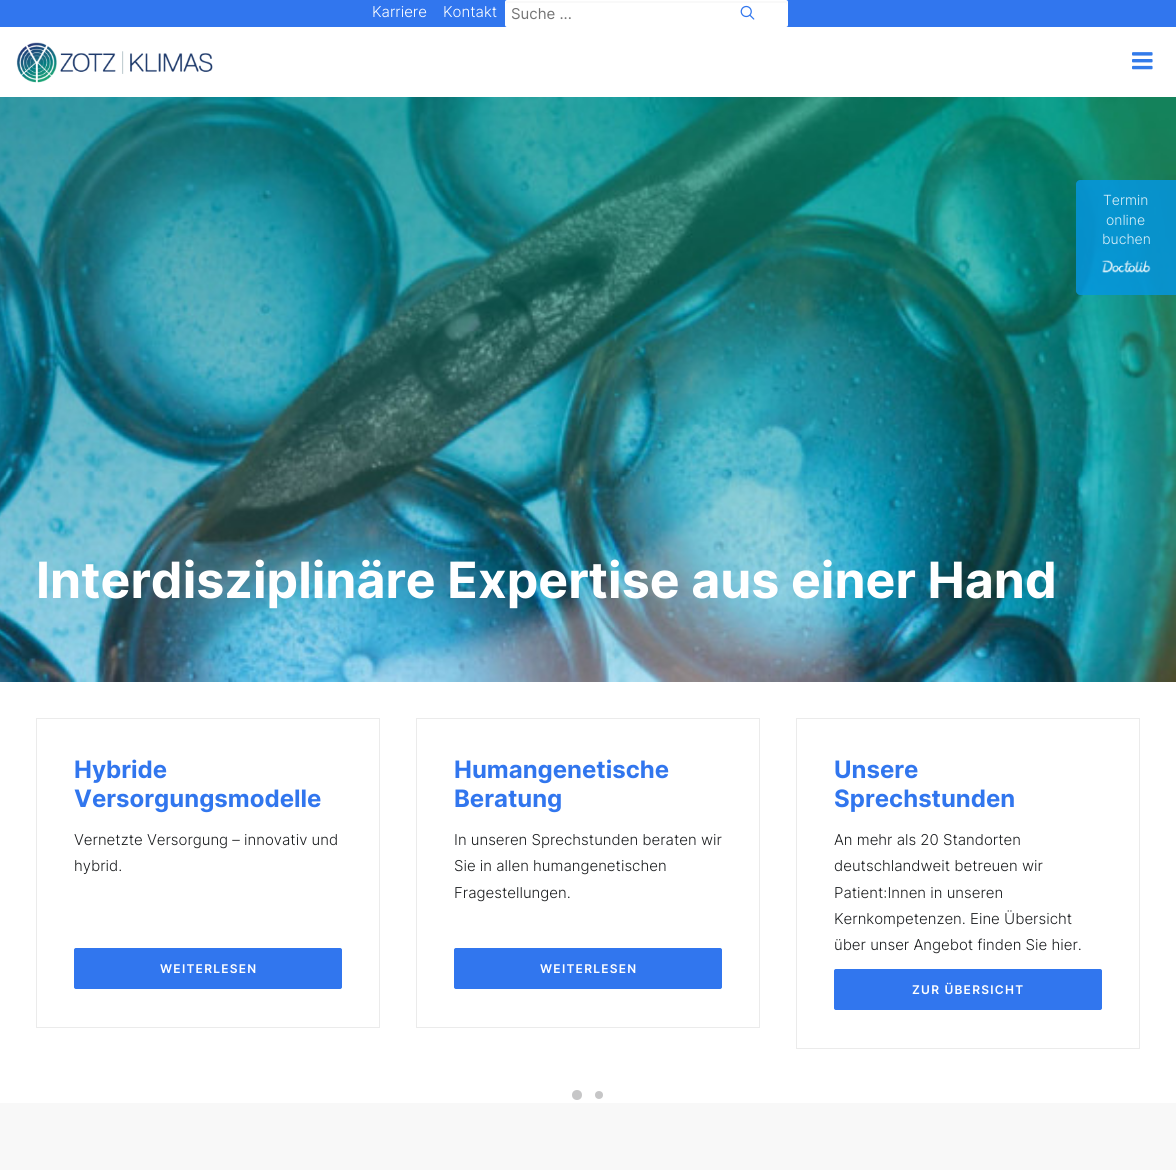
import math
import cairo

surface = cairo.ImageSurface(cairo.FORMAT_RGB24, 1176, 1170)
ctx = cairo.Context(surface)
options = cairo.FontOptions()
options.set_hint_metrics(cairo.HINT_METRICS_OFF)
options.set_hint_style(cairo.HINT_STYLE_NONE)
ctx.set_font_options(options)
ctx.set_miter_limit(4)


def spaced_text(x, y, s, letter, word):
    ctx.move_to(x, y)
    for ch in s:
        ctx.show_text(ch)
        ctx.rel_move_to(letter + word * (ch == ' '), 0)


def round_rect(x, y, w, h, r):
    ctx.new_sub_path()
    for i, (u, v) in enumerate([(x + w - r, y + h - r), (x + r, y + h - r), (x + r, y + r), (x + w - r, y + r)]):
        ctx.arc(u, v, r, i * math.pi / 2, (i + 1) * math.pi / 2)
    ctx.close_path()


def picture(path, x, y, w, h):
    ctx.save()
    ctx.set_source_surface(cairo.ImageSurface.create_from_png(path), x, y)
    ctx.rectangle(x, y, w, h)
    ctx.fill()
    ctx.restore()


ctx.set_source_rgb(1, 1, 1)
ctx.paint()
ctx.set_source_rgb(0.192, 0.463, 0.933)
ctx.rectangle(0, 0, 1176, 27)
ctx.fill()
ctx.select_font_face("Inter Light")
ctx.set_font_size(15)
ctx.set_source_rgb(1, 1, 1)
ctx.move_to(372, 17)
ctx.show_text("Karriere")
ctx.move_to(443, 17)
ctx.show_text("Kontakt")
round_rect(505, 0, 283, 27, 2)
ctx.fill()
ctx.set_source_rgb(0.976, 0.976, 0.976)
ctx.new_path()
ctx.move_to(507, 3)
ctx.line_to(786, 3)
ctx.line_to(787, 5)
ctx.curve_to(787, 4, 788, 1, 786, 1)
ctx.line_to(507, 1)
ctx.curve_to(506, 2, 506, 3, 506, 4)
ctx.close_path()
ctx.fill()
ctx.select_font_face("Inter")
ctx.set_source_rgb(0.459, 0.459, 0.459)
ctx.move_to(511, 19)
ctx.show_text("Suche ...")
picture("img1.png", 740, 5, 15, 15)
picture("img2.png", 16, 42, 197, 41)
picture("img3.png", 1132, 52, 21, 18)
picture("img4.png", 0, 97, 1176, 585)
ctx.select_font_face("Inter", cairo.FONT_SLANT_NORMAL, cairo.FONT_WEIGHT_BOLD)
ctx.set_font_size(50)
ctx.set_source_rgb(1, 1, 1)
ctx.move_to(36, 598)
ctx.show_text("Interdisziplinäre Expertise aus einer Hand")
ctx.rectangle(36.5, 718.5, 343, 309)
ctx.set_source_rgb(0.918, 0.918, 0.918)
ctx.set_line_width(1)
ctx.stroke()
ctx.set_font_size(24)
ctx.set_source_rgb(0.192, 0.463, 0.933)
ctx.move_to(74, 778)
ctx.show_text("Hybride")
ctx.move_to(74, 807)
ctx.show_text("Versorgungsmodelle")
ctx.select_font_face("Inter Light")
ctx.set_font_size(15)
ctx.set_source_rgb(0.106, 0.114, 0.122)
ctx.move_to(74, 845)
ctx.show_text("Vernetzte Versorgung – innovativ und")
ctx.move_to(74, 871)
ctx.show_text("hybrid.")
ctx.set_source_rgb(0.192, 0.463, 0.933)
round_rect(74.5, 948.5, 267, 40, 1.5)
ctx.fill_preserve()
ctx.stroke()
ctx.select_font_face("Inter SemiBold")
ctx.set_font_size(12)
ctx.set_source_rgb(1, 1, 1)
spaced_text(160, 973, "WEITERLESEN", 1.25, 0)
ctx.rectangle(416.5, 718.5, 343, 309)
ctx.set_source_rgb(0.918, 0.918, 0.918)
ctx.stroke()
ctx.select_font_face("Inter", cairo.FONT_SLANT_NORMAL, cairo.FONT_WEIGHT_BOLD)
ctx.set_font_size(24)
ctx.set_source_rgb(0.192, 0.463, 0.933)
ctx.move_to(454, 778)
ctx.show_text("Humangenetische")
ctx.move_to(454, 807)
ctx.show_text("Beratung")
ctx.select_font_face("Inter Light")
ctx.set_font_size(15)
ctx.set_source_rgb(0.106, 0.114, 0.122)
ctx.move_to(454, 845)
ctx.show_text("In unseren Sprechstunden beraten wir")
ctx.move_to(454, 871)
ctx.show_text("Sie in allen humangenetischen")
ctx.move_to(454, 898)
ctx.show_text("Fragestellungen.")
ctx.set_source_rgb(0.192, 0.463, 0.933)
round_rect(454.5, 948.5, 267, 40, 1.5)
ctx.fill_preserve()
ctx.stroke()
ctx.select_font_face("Inter SemiBold")
ctx.set_font_size(12)
ctx.set_source_rgb(1, 1, 1)
spaced_text(540, 973, "WEITERLESEN", 1.25, 0)
ctx.rectangle(796.5, 718.5, 343, 330)
ctx.set_source_rgb(0.918, 0.918, 0.918)
ctx.stroke()
ctx.select_font_face("Inter", cairo.FONT_SLANT_NORMAL, cairo.FONT_WEIGHT_BOLD)
ctx.set_font_size(24)
ctx.set_source_rgb(0.192, 0.463, 0.933)
ctx.move_to(834, 778)
ctx.show_text("Unsere")
ctx.move_to(834, 807)
ctx.show_text("Sprechstunden")
ctx.select_font_face("Inter Light")
ctx.set_font_size(15)
ctx.set_source_rgb(0.106, 0.114, 0.122)
ctx.move_to(834, 845)
ctx.show_text("An mehr als 20 Standorten")
ctx.move_to(834, 871)
ctx.show_text("deutschlandweit betreuen wir")
ctx.move_to(834, 898)
ctx.show_text("Patient:Innen in unseren")
ctx.move_to(834, 924)
ctx.show_text("Kernkompetenzen. Eine Übersicht")
ctx.move_to(834, 950)
ctx.show_text("über unser Angebot finden Sie hier.")
ctx.set_source_rgb(0.192, 0.463, 0.933)
round_rect(834.5, 969.5, 267, 40, 1.5)
ctx.fill_preserve()
ctx.stroke()
ctx.select_font_face("Inter SemiBold")
ctx.set_font_size(12)
ctx.set_source_rgb(1, 1, 1)
spaced_text(912, 994, "ZUR ÜBERSICHT", 1.25, 0)
ctx.set_source_rgb(0.776, 0.776, 0.78)
ctx.new_path()
ctx.arc(577, 1095, 5, 0, 2 * math.pi)
ctx.fill()
ctx.arc(599, 1095, 4, 0, 2 * math.pi)
ctx.fill()
ctx.set_source_rgb(0.969, 0.969, 0.969)
ctx.rectangle(0, 1103, 1176, 67)
ctx.fill()
ctx.set_source_rgba(0.02, 0.588, 0.871, 0.85)
ctx.new_path()
ctx.move_to(1080, 180)
ctx.line_to(1176, 180)
ctx.line_to(1176, 295)
ctx.line_to(1080, 295)
ctx.curve_to(1078, 295, 1076, 293, 1076, 291)
ctx.line_to(1076, 184)
ctx.curve_to(1076, 182, 1078, 180, 1080, 180)
ctx.close_path()
ctx.fill()
ctx.select_font_face("Inter Light")
ctx.set_font_size(14)
ctx.set_source_rgb(0.855, 0.937, 0.973)
ctx.move_to(1103, 205)
ctx.show_text("Termin")
ctx.move_to(1106, 225)
ctx.show_text("online")
ctx.move_to(1102, 244)
ctx.show_text("buchen")
picture("img5.png", 1102, 260, 49, 13)
surface.write_to_png("page.png")
